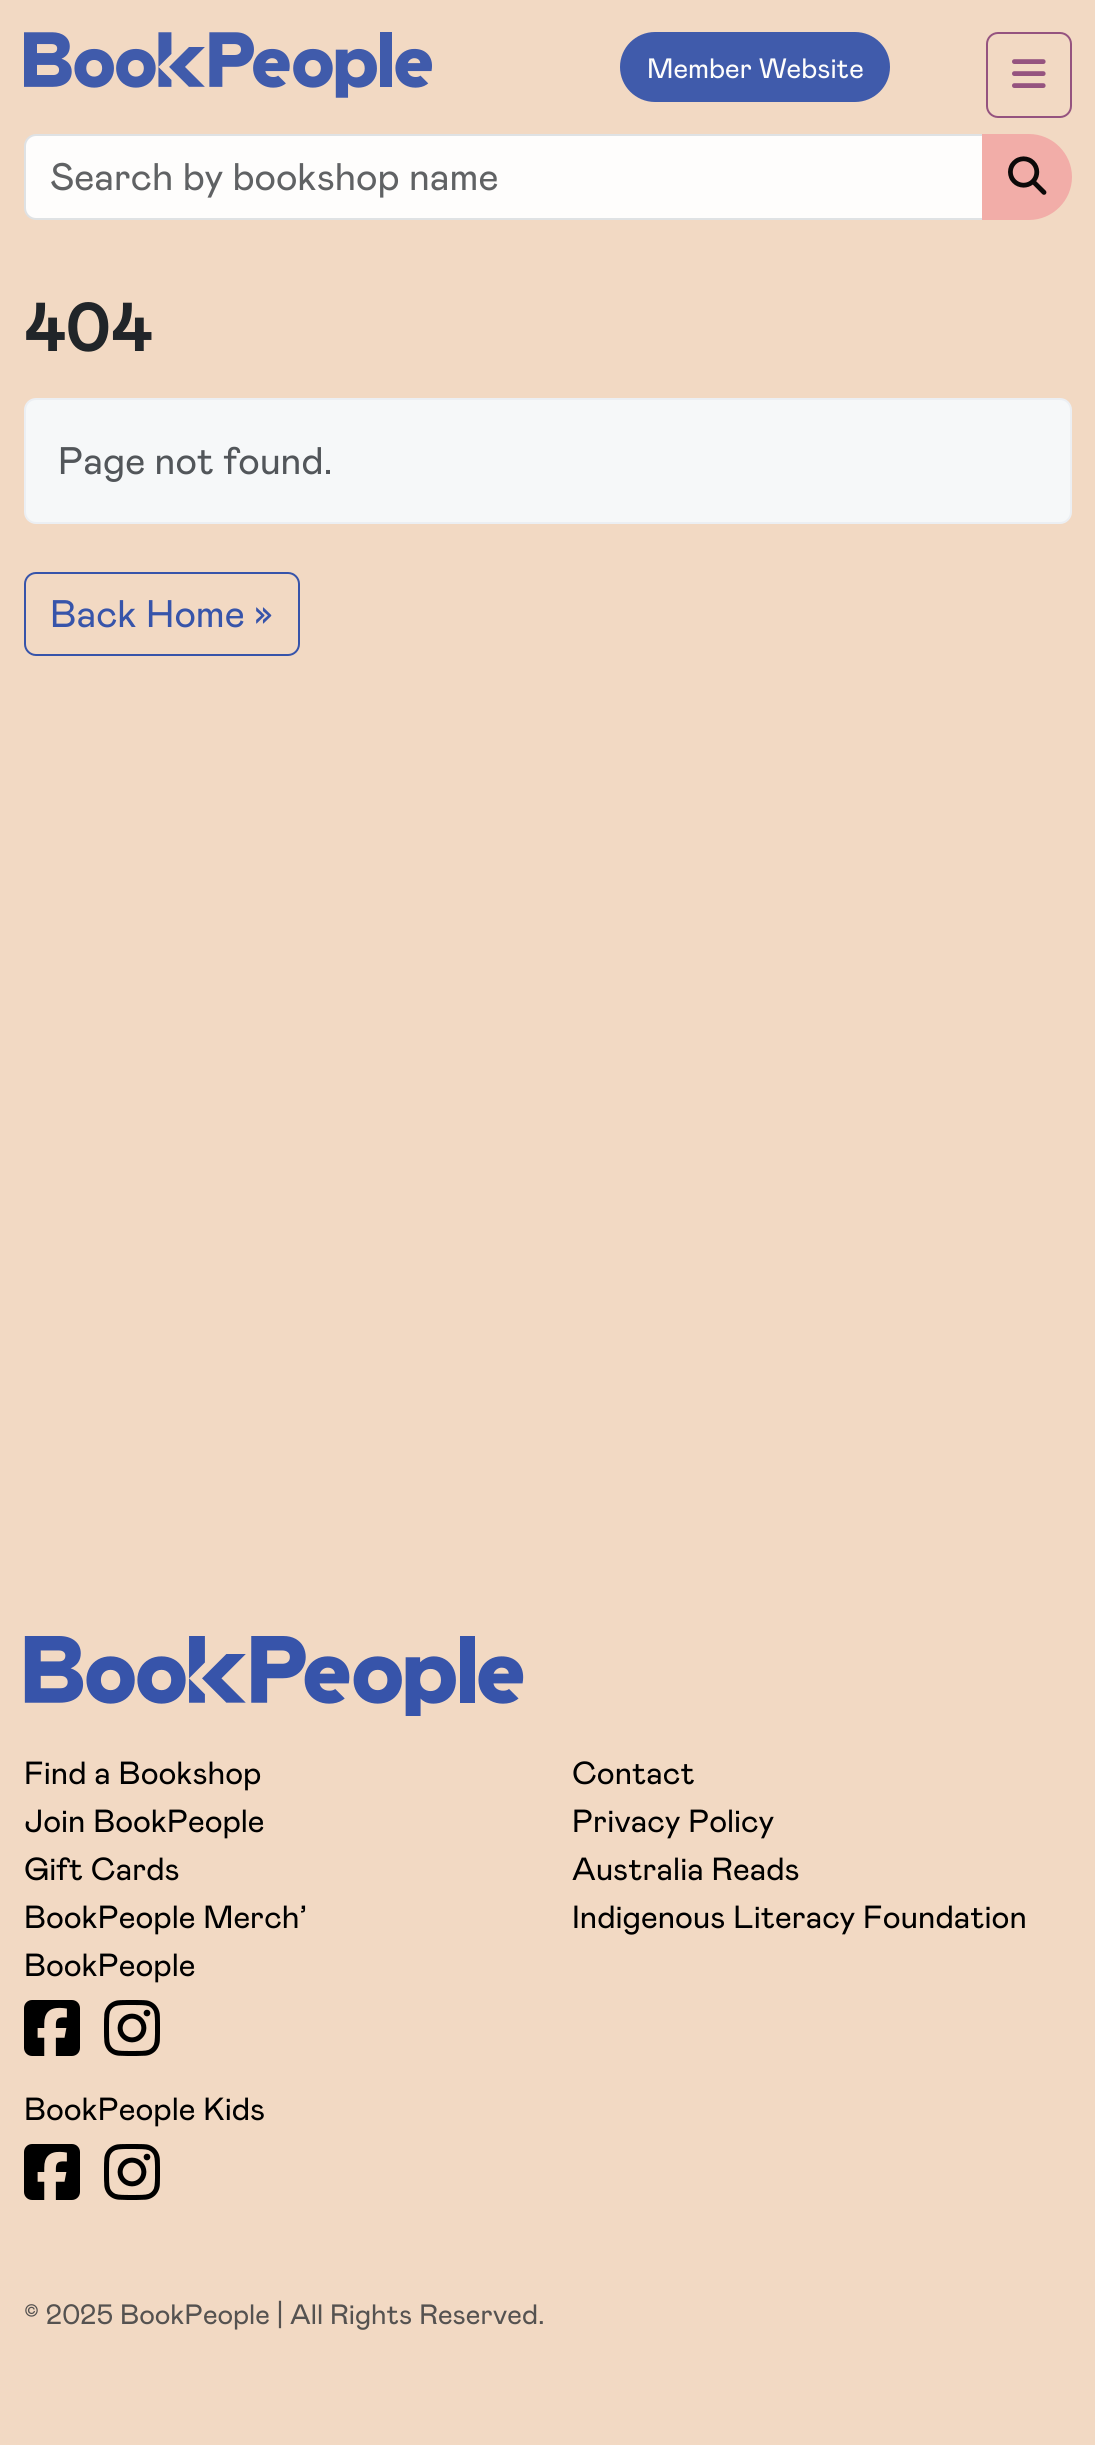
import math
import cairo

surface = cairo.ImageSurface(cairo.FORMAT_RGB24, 1095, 2445)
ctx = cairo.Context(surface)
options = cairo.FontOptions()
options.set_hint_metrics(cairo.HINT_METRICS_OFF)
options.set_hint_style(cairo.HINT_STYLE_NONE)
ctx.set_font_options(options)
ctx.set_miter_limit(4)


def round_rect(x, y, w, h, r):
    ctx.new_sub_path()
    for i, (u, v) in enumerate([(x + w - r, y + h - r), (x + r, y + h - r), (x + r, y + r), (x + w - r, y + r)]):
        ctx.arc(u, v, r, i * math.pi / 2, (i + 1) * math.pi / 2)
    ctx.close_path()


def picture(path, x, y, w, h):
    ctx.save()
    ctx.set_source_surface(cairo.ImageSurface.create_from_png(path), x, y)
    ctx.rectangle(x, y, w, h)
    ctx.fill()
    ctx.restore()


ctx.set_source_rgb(0.949, 0.851, 0.765)
ctx.paint()
picture("img1.png", 24, 32, 408, 66)
ctx.set_source_rgb(0.251, 0.357, 0.671)
round_rect(621, 33, 268, 68, 34)
ctx.fill_preserve()
ctx.stroke()
ctx.select_font_face("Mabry")
ctx.set_font_size(28)
ctx.set_source_rgb(0.996, 0.992, 0.988)
ctx.move_to(647, 78)
ctx.show_text("Member Website")
round_rect(987, 33, 84, 84, 11)
ctx.set_source_rgb(0.584, 0.325, 0.498)
ctx.stroke()
picture("img2.png", 1012, 59, 34, 29)
ctx.set_source_rgb(0.996, 0.992, 0.988)
ctx.new_path()
ctx.move_to(36, 135)
ctx.line_to(983, 135)
ctx.line_to(983, 219)
ctx.line_to(36, 219)
ctx.curve_to(30, 219, 25, 214, 25, 208)
ctx.line_to(25, 146)
ctx.curve_to(25, 140, 30, 135, 36, 135)
ctx.close_path()
ctx.fill_preserve()
ctx.set_source_rgb(0.875, 0.886, 0.894)
ctx.stroke()
ctx.set_font_size(38.4)
ctx.set_source_rgb(0.376, 0.384, 0.392)
ctx.move_to(50, 190)
ctx.show_text("Search by bookshop name")
ctx.set_source_rgb(0.949, 0.678, 0.659)
ctx.new_path()
ctx.move_to(983, 135)
ctx.line_to(1029, 135)
ctx.curve_to(1052, 135, 1071, 154, 1071, 177)
ctx.curve_to(1071, 200, 1052, 219, 1029, 219)
ctx.line_to(983, 219)
ctx.close_path()
ctx.fill_preserve()
ctx.stroke()
picture("img3.png", 1008, 156, 39, 39)
ctx.select_font_face("Mabry", cairo.FONT_SLANT_NORMAL, cairo.FONT_WEIGHT_BOLD)
ctx.set_font_size(69)
ctx.set_source_rgb(0.129, 0.145, 0.161)
ctx.move_to(24, 351)
ctx.show_text("404")
ctx.set_source_rgb(0.961, 0.969, 0.976)
round_rect(25, 399, 1046, 124, 11)
ctx.fill_preserve()
ctx.set_source_rgb(0.922, 0.937, 0.953)
ctx.stroke()
ctx.select_font_face("Mabry")
ctx.set_font_size(38.4)
ctx.set_source_rgb(0.322, 0.337, 0.353)
ctx.move_to(58, 474)
ctx.show_text("Page not found.")
round_rect(25, 573, 274, 82, 11)
ctx.set_source_rgb(0.216, 0.329, 0.667)
ctx.stroke()
ctx.move_to(50, 627)
ctx.show_text("Back Home »")
picture("img4.png", 24, 1636, 500, 80)
ctx.set_font_size(32)
ctx.set_source_rgb(0, 0, 0)
ctx.move_to(24, 1784)
ctx.show_text("Find a Bookshop")
ctx.move_to(24, 1832)
ctx.show_text("Join BookPeople")
ctx.move_to(24, 1880)
ctx.show_text("Gift Cards")
ctx.move_to(24, 1928)
ctx.show_text("BookPeople Merch’")
ctx.move_to(572, 1784)
ctx.show_text("Contact")
ctx.move_to(572, 1832)
ctx.show_text("Privacy Policy")
ctx.move_to(572, 1880)
ctx.show_text("Australia Reads")
ctx.move_to(572, 1928)
ctx.show_text("Indigenous Literacy Foundation")
ctx.move_to(24, 1976)
ctx.show_text("BookPeople")
picture("img5.png", 24, 2000, 56, 56)
picture("img6.png", 104, 2000, 56, 56)
ctx.move_to(24, 2120)
ctx.show_text("BookPeople Kids")
picture("img5.png", 24, 2144, 56, 56)
picture("img6.png", 104, 2144, 56, 56)
ctx.set_font_size(28)
ctx.set_source_rgb(0.333, 0.322, 0.314)
ctx.move_to(24, 2324)
ctx.show_text("© 2025 BookPeople | All Rights Reserved.")
surface.write_to_png("page.png")
